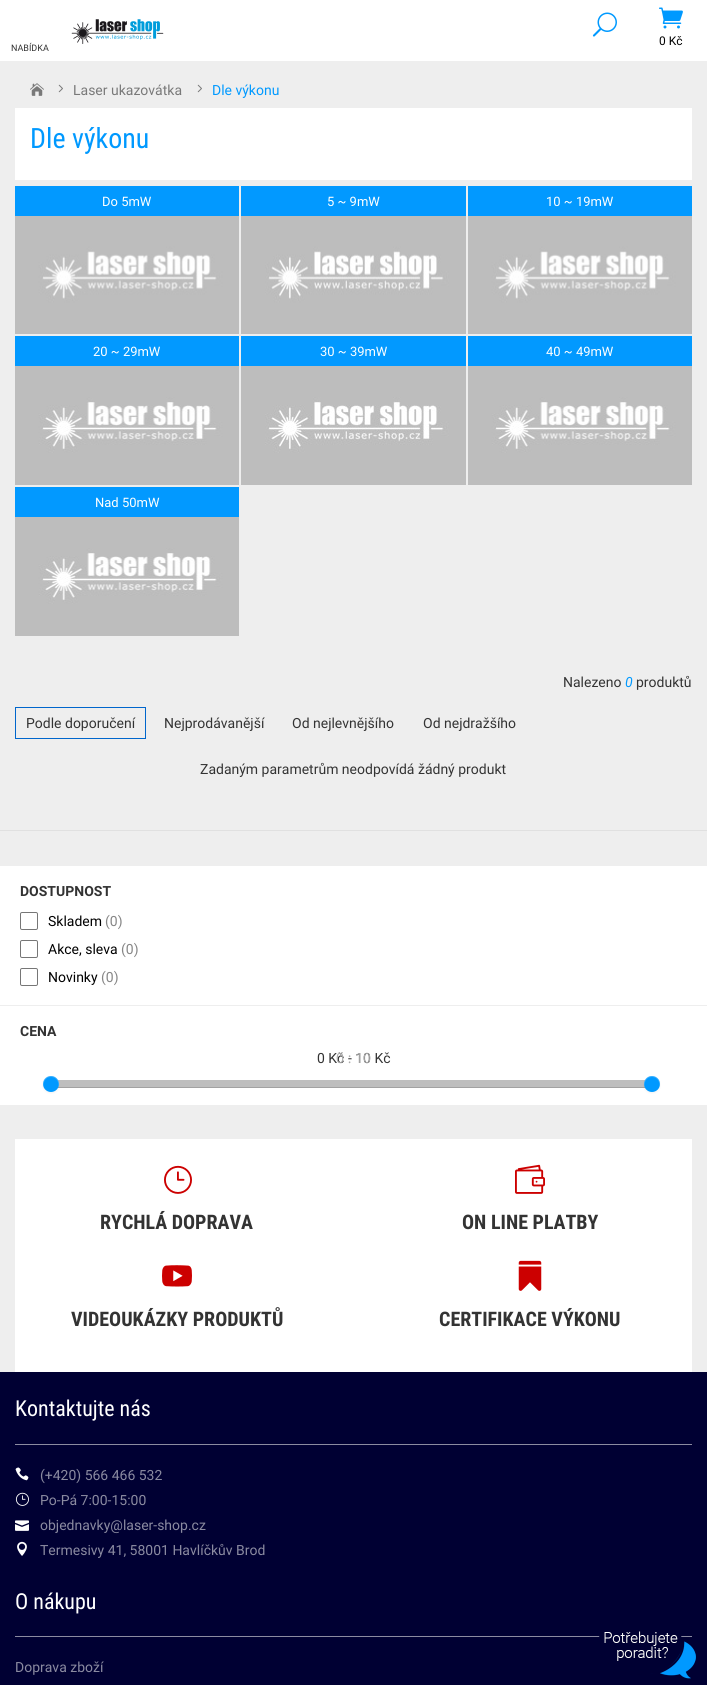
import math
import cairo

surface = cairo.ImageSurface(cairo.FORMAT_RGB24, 707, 1685)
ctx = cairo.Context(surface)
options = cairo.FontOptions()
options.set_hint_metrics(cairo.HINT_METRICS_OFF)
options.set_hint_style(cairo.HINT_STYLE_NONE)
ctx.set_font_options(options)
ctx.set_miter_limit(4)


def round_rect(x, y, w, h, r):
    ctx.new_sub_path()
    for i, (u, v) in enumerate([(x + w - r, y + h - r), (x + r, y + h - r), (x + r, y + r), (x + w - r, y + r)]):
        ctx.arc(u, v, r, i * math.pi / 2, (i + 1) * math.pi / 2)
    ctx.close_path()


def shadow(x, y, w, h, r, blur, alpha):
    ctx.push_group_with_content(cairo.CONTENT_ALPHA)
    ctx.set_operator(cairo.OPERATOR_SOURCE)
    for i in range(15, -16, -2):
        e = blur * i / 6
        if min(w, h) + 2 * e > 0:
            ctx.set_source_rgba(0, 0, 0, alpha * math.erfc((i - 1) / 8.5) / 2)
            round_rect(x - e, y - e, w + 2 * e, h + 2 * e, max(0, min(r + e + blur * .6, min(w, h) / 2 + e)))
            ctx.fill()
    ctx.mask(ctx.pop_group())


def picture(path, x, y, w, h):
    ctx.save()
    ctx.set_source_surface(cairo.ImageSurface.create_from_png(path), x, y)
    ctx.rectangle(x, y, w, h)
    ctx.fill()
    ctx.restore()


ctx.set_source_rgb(0.933, 0.933, 0.933)
ctx.paint()
ctx.set_source_rgb(1, 1, 1)
ctx.rectangle(0, 0, 707, 61)
ctx.fill()
ctx.select_font_face("Roboto")
ctx.set_font_size(9)
ctx.set_source_rgb(0.2, 0.2, 0.2)
ctx.move_to(11, 51)
ctx.show_text("NABÍDKA")
picture("img1.png", 71, 19, 93, 25)
picture("img2.png", 592, 12, 25, 25)
picture("img3.png", 659, 7, 24, 22)
ctx.set_font_size(12)
ctx.set_source_rgb(0, 0, 0)
ctx.move_to(659, 45)
ctx.show_text("0 Kč")
picture("img4.png", 30, 83, 14, 13)
picture("img5.png", 58, 84, 5, 9)
ctx.set_font_size(14)
ctx.set_source_rgb(0.475, 0.475, 0.475)
ctx.move_to(73, 95)
ctx.show_text("Laser ukazovátka")
picture("img5.png", 197, 84, 5, 9)
ctx.set_source_rgb(0, 0.6, 1)
ctx.move_to(212, 95)
ctx.show_text("Dle výkonu")
ctx.set_source_rgb(1, 1, 1)
ctx.rectangle(15, 108, 677, 72)
ctx.fill()
ctx.select_font_face("Roboto Condensed")
ctx.set_font_size(28)
ctx.set_source_rgb(0, 0.6, 1)
ctx.move_to(30, 148)
ctx.show_text("Dle výkonu")
ctx.set_source_rgb(0.008, 0.6, 1)
ctx.rectangle(15, 186, 224, 30)
ctx.fill()
ctx.select_font_face("Roboto")
ctx.set_font_size(13)
ctx.set_source_rgb(1, 1, 1)
ctx.move_to(102, 206)
ctx.show_text("Do 5mW")
picture("img6.png", 15, 216, 224, 118)
ctx.set_source_rgb(0.008, 0.6, 1)
ctx.rectangle(241, 186, 225, 30)
ctx.fill()
ctx.set_source_rgb(1, 1, 1)
ctx.move_to(327, 206)
ctx.show_text("5 ~ 9mW")
picture("img7.png", 241, 216, 225, 118)
ctx.set_source_rgb(0.008, 0.6, 1)
ctx.rectangle(468, 186, 224, 30)
ctx.fill()
ctx.set_source_rgb(1, 1, 1)
ctx.move_to(546, 206)
ctx.show_text("10 ~ 19mW")
picture("img6.png", 468, 216, 224, 118)
ctx.set_source_rgb(0.008, 0.6, 1)
ctx.rectangle(15, 336, 224, 30)
ctx.fill()
ctx.set_source_rgb(1, 1, 1)
ctx.move_to(93, 356)
ctx.show_text("20 ~ 29mW")
picture("img8.png", 15, 366, 224, 119)
ctx.set_source_rgb(0.008, 0.6, 1)
ctx.rectangle(241, 336, 225, 30)
ctx.fill()
ctx.set_source_rgb(1, 1, 1)
ctx.move_to(320, 356)
ctx.show_text("30 ~ 39mW")
picture("img9.png", 241, 366, 225, 119)
ctx.set_source_rgb(0.008, 0.6, 1)
ctx.rectangle(468, 336, 224, 30)
ctx.fill()
ctx.set_source_rgb(1, 1, 1)
ctx.move_to(546, 356)
ctx.show_text("40 ~ 49mW")
picture("img8.png", 468, 366, 224, 119)
ctx.set_source_rgb(0.008, 0.6, 1)
ctx.rectangle(15, 487, 224, 30)
ctx.fill()
ctx.set_source_rgb(1, 1, 1)
ctx.move_to(95, 507)
ctx.show_text("Nad 50mW")
picture("img8.png", 15, 517, 224, 119)
ctx.set_font_size(14)
ctx.set_source_rgb(0.2, 0.2, 0.2)
ctx.move_to(563, 687)
ctx.show_text("Nalezeno")
ctx.select_font_face("Roboto", cairo.FONT_SLANT_ITALIC)
ctx.set_source_rgb(0, 0.6, 1)
ctx.move_to(625, 687)
ctx.show_text("0")
ctx.select_font_face("Roboto")
ctx.set_source_rgb(0.2, 0.2, 0.2)
ctx.move_to(636, 687)
ctx.show_text("produktů")
ctx.rectangle(15.5, 707.5, 130, 31)
ctx.set_source_rgb(0, 0.4, 0.8)
ctx.set_line_width(1)
ctx.stroke()
ctx.set_source_rgb(0.2, 0.2, 0.2)
ctx.move_to(26, 728)
ctx.show_text("Podle doporučení")
ctx.move_to(164, 728)
ctx.show_text("Nejprodávanější")
ctx.move_to(292, 728)
ctx.show_text("Od nejlevnějšího")
ctx.move_to(423, 728)
ctx.show_text("Od nejdražšího")
ctx.move_to(200, 774)
ctx.show_text("Zadaným parametrům neodpovídá žádný produkt")
ctx.set_source_rgb(0.878, 0.878, 0.878)
ctx.rectangle(0, 830, 707, 1)
ctx.fill()
ctx.set_source_rgb(1, 1, 1)
ctx.rectangle(0, 866, 707, 239)
ctx.fill()
ctx.set_source_rgb(0.933, 0.933, 0.933)
ctx.rectangle(0, 1005, 707, 1)
ctx.fill()
ctx.select_font_face("Roboto", cairo.FONT_SLANT_NORMAL, cairo.FONT_WEIGHT_BOLD)
ctx.set_source_rgb(0.2, 0.2, 0.2)
ctx.move_to(20, 896)
ctx.show_text("DOSTUPNOST")
round_rect(20.5, 912.5, 17, 17, 1.5)
ctx.set_source_rgb(0.463, 0.463, 0.463)
ctx.stroke()
ctx.select_font_face("Roboto")
ctx.set_source_rgb(0, 0, 0)
ctx.move_to(48, 926)
ctx.show_text("Skladem")
ctx.set_source_rgb(0.525, 0.525, 0.525)
ctx.move_to(105, 926)
ctx.show_text("(0)")
round_rect(20.5, 940.5, 17, 17, 1.5)
ctx.set_source_rgb(0.463, 0.463, 0.463)
ctx.stroke()
ctx.set_source_rgb(0, 0, 0)
ctx.move_to(48, 954)
ctx.show_text("Akce, sleva")
ctx.set_source_rgb(0.525, 0.525, 0.525)
ctx.move_to(121, 954)
ctx.show_text("(0)")
round_rect(20.5, 968.5, 17, 17, 1.5)
ctx.set_source_rgb(0.463, 0.463, 0.463)
ctx.stroke()
ctx.set_source_rgb(0, 0, 0)
ctx.move_to(48, 982)
ctx.show_text("Novinky")
ctx.set_source_rgb(0.525, 0.525, 0.525)
ctx.move_to(101, 982)
ctx.show_text("(0)")
ctx.select_font_face("Roboto", cairo.FONT_SLANT_NORMAL, cairo.FONT_WEIGHT_BOLD)
ctx.set_source_rgb(0.2, 0.2, 0.2)
ctx.move_to(20, 1036)
ctx.show_text("CENA")
ctx.select_font_face("Roboto")
ctx.move_to(317, 1063)
ctx.show_text("0 Kč - 10 Kč")
ctx.select_font_face("Open Sans")
ctx.set_source_rgb(0.671, 0.671, 0.671)
ctx.move_to(336, 1063)
ctx.show_text("0 : 10")
ctx.set_source_rgb(0.745, 0.745, 0.745)
ctx.rectangle(53, 1080, 601, 8)
ctx.fill()
ctx.set_source_rgba(0, 0, 0, 0.15)
ctx.new_path()
ctx.move_to(53, 1083)
ctx.curve_to(52, 1085, 54, 1088, 57, 1088)
ctx.line_to(650, 1088)
ctx.curve_to(653, 1088, 655, 1085, 654, 1082)
ctx.curve_to(654, 1084, 653, 1086, 652, 1087)
ctx.line_to(57, 1087)
ctx.curve_to(54, 1087, 53, 1085, 53, 1083)
ctx.close_path()
ctx.fill()
ctx.set_source_rgb(0, 0, 0)
shadow(43, 1077, 16, 16, 8, 1, 0.05)
ctx.set_source_rgb(0, 0.6, 1)
ctx.arc(51, 1084, 8, 0, 2 * math.pi)
ctx.fill()
ctx.set_source_rgba(1, 1, 1, 0.2)
ctx.new_path()
ctx.move_to(51, 1077)
ctx.curve_to(57, 1077, 59.5, 1083, 58, 1087.5)
ctx.curve_to(63, 1078, 48, 1070.5, 43.5, 1081)
ctx.curve_to(42.5, 1083, 43, 1085.5, 44, 1087.5)
ctx.curve_to(42.5, 1083, 45, 1077, 51, 1077)
ctx.close_path()
ctx.fill()
ctx.set_source_rgb(0, 0, 0)
shadow(644, 1077, 16, 16, 8, 1, 0.05)
ctx.set_source_rgb(0, 0.6, 1)
ctx.arc(652, 1084, 8, 0, 2 * math.pi)
ctx.fill()
ctx.set_source_rgba(1, 1, 1, 0.2)
ctx.new_path()
ctx.move_to(652, 1077)
ctx.curve_to(658, 1077, 660.5, 1083, 659, 1087.5)
ctx.curve_to(660, 1085.5, 660.5, 1083, 659.5, 1081)
ctx.curve_to(655, 1070.5, 640, 1078, 645, 1087.5)
ctx.curve_to(643.5, 1083, 646, 1077, 652, 1077)
ctx.close_path()
ctx.fill()
ctx.set_source_rgb(1, 1, 1)
ctx.rectangle(15, 1139, 677, 233)
ctx.fill()
picture("img10.png", 164, 1165, 28, 29)
ctx.select_font_face("Roboto Condensed", cairo.FONT_SLANT_NORMAL, cairo.FONT_WEIGHT_BOLD)
ctx.set_font_size(20)
ctx.set_source_rgb(0.2, 0.2, 0.2)
ctx.move_to(100, 1229)
ctx.show_text("RYCHLÁ DOPRAVA")
picture("img11.png", 515, 1164, 30, 30)
ctx.move_to(462, 1229)
ctx.show_text("ON LINE PLATBY")
picture("img12.png", 162, 1265, 30, 22)
ctx.move_to(71, 1326)
ctx.show_text("VIDEOUKÁZKY PRODUKTŮ")
picture("img13.png", 518, 1260, 24, 31)
ctx.move_to(439, 1326)
ctx.show_text("CERTIFIKACE VÝKONU")
ctx.set_source_rgb(0, 0, 0.2)
ctx.rectangle(0, 1372, 707, 313)
ctx.fill()
ctx.set_source_rgb(0.545, 0.545, 0.631)
ctx.rectangle(15, 1444, 677, 1)
ctx.fill()
ctx.select_font_face("Roboto Condensed")
ctx.set_font_size(22)
ctx.set_source_rgb(1, 1, 1)
ctx.move_to(15, 1416)
ctx.show_text("Kontaktujte nás")
picture("img14.png", 15, 1467, 14, 14)
ctx.select_font_face("Roboto")
ctx.set_font_size(14)
ctx.set_source_rgb(0.545, 0.545, 0.631)
ctx.move_to(40, 1480)
ctx.show_text("(+420) 566 466 532")
picture("img15.png", 15, 1492, 14, 14)
ctx.move_to(40, 1505)
ctx.show_text("Po-Pá 7:00-15:00")
picture("img16.png", 15, 1520, 14, 11)
ctx.move_to(40, 1530)
ctx.show_text("objednavky@laser-shop.cz")
picture("img17.png", 17, 1541, 10, 15)
ctx.move_to(40, 1555)
ctx.show_text("Termesivy 41, 58001 Havlíčkův Brod")
ctx.rectangle(15, 1636, 677, 1)
ctx.fill()
ctx.select_font_face("Roboto Condensed")
ctx.set_font_size(22)
ctx.set_source_rgb(1, 1, 1)
ctx.move_to(15, 1609)
ctx.show_text("O nákupu")
ctx.select_font_face("Roboto")
ctx.set_font_size(14)
ctx.set_source_rgb(0.545, 0.545, 0.631)
ctx.move_to(15, 1672)
ctx.show_text("Doprava zboží")
picture("img18.png", 599, 1631, 97, 48)
surface.write_to_png("page.png")
